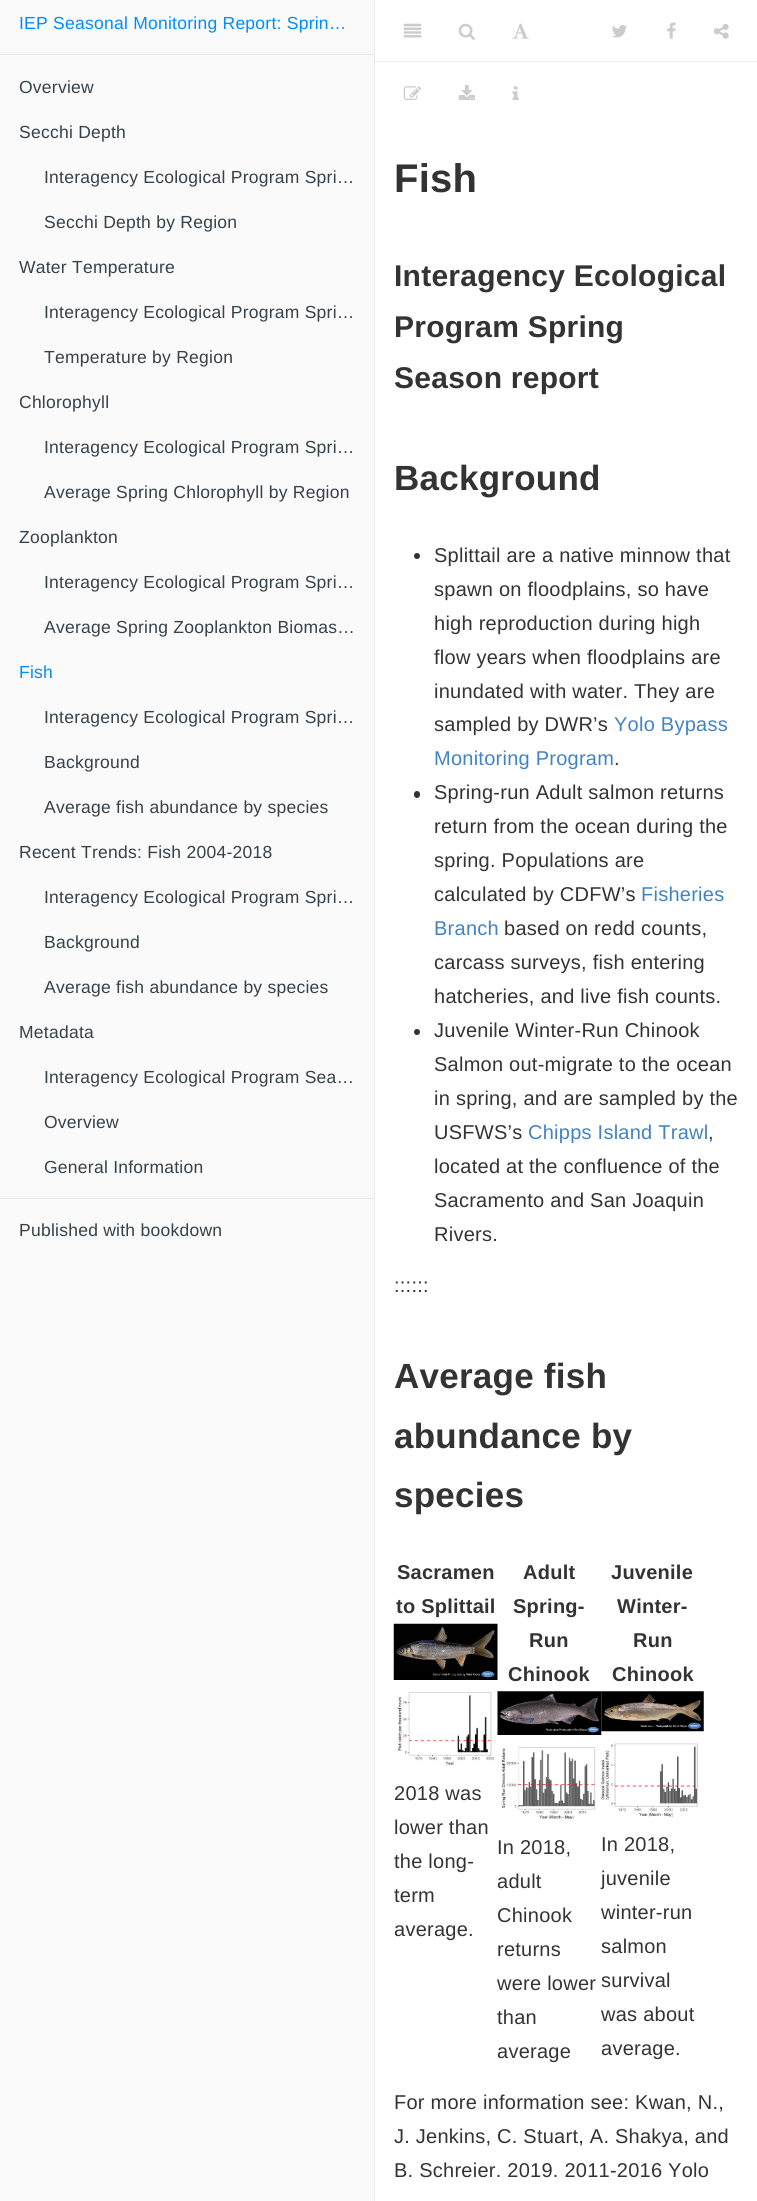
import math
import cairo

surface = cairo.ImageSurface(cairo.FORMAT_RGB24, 757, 2201)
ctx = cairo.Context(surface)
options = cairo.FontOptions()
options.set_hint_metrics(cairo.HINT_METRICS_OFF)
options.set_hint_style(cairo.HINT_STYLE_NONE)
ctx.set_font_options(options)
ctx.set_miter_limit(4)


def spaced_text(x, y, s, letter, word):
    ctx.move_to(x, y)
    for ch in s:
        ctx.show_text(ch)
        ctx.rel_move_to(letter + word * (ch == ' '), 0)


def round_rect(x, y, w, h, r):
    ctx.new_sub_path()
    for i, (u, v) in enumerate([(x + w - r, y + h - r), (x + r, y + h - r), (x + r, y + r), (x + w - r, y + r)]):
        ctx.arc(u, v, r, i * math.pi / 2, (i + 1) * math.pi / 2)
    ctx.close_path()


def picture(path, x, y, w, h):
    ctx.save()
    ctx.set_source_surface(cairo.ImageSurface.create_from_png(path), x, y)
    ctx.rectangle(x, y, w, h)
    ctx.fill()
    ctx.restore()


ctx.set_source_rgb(1, 1, 1)
ctx.paint()
ctx.set_source_rgb(0.98, 0.98, 0.98)
ctx.rectangle(0, 0, 374, 2201)
ctx.fill()
ctx.set_source_rgb(0.914, 0.914, 0.914)
ctx.rectangle(374, 0, 1, 2201)
ctx.fill()
ctx.select_font_face("Liberation Sans")
ctx.set_font_size(17.5)
ctx.set_source_rgb(0, 0.549, 1)
spaced_text(19, 29, "IEP Seasonal Monitoring Report: Sprin…", 0.25, 0)
ctx.set_source_rgb(0.914, 0.914, 0.914)
ctx.rectangle(0, 54, 374, 1)
ctx.fill()
ctx.set_source_rgb(0.212, 0.255, 0.286)
spaced_text(19, 93, "Overview", 0.25, 0)
spaced_text(19, 138, "Secchi Depth", 0.25, 0)
spaced_text(44, 183, "Interagency Ecological Program Spri…", 0.25, 0)
spaced_text(44, 228, "Secchi Depth by Region", 0.25, 0)
spaced_text(19, 273, "Water Temperature", 0.25, 0)
spaced_text(44, 318, "Interagency Ecological Program Spri…", 0.25, 0)
spaced_text(44, 363, "Temperature by Region", 0.25, 0)
spaced_text(19, 408, "Chlorophyll", 0.25, 0)
spaced_text(44, 453, "Interagency Ecological Program Spri…", 0.25, 0)
spaced_text(44, 498, "Average Spring Chlorophyll by Region", 0.25, 0)
spaced_text(19, 543, "Zooplankton", 0.25, 0)
spaced_text(44, 588, "Interagency Ecological Program Spri…", 0.25, 0)
spaced_text(44, 633, "Average Spring Zooplankton Biomas…", 0.25, 0)
ctx.set_source_rgb(0, 0.549, 1)
spaced_text(19, 678, "Fish", 0.25, 0)
ctx.set_source_rgb(0.212, 0.255, 0.286)
spaced_text(44, 723, "Interagency Ecological Program Spri…", 0.25, 0)
spaced_text(44, 768, "Background", 0.25, 0)
spaced_text(44, 813, "Average fish abundance by species", 0.25, 0)
spaced_text(19, 858, "Recent Trends: Fish 2004-2018", 0.25, 0)
spaced_text(44, 903, "Interagency Ecological Program Spri…", 0.25, 0)
spaced_text(44, 948, "Background", 0.25, 0)
spaced_text(44, 993, "Average fish abundance by species", 0.25, 0)
spaced_text(19, 1038, "Metadata", 0.25, 0)
spaced_text(44, 1083, "Interagency Ecological Program Sea…", 0.25, 0)
spaced_text(44, 1128, "Overview", 0.25, 0)
spaced_text(44, 1173, "General Information", 0.25, 0)
ctx.set_source_rgb(0.914, 0.914, 0.914)
ctx.rectangle(0, 1198, 374, 1)
ctx.fill()
ctx.set_source_rgb(0.212, 0.255, 0.286)
spaced_text(19, 1236, "Published with bookdown", 0.25, 0)
ctx.set_source_rgb(0.929, 0.929, 0.929)
ctx.rectangle(375, 61, 382, 1)
ctx.fill()
picture("img1.png", 403, 23, 19, 15)
picture("img2.png", 458, 23, 17, 17)
picture("img3.png", 512, 23, 17, 16)
picture("img4.png", 612, 25, 15, 13)
picture("img5.png", 667, 22, 9, 17)
picture("img6.png", 713, 23, 16, 16)
picture("img7.png", 403, 86, 18, 14)
picture("img8.png", 458, 85, 17, 15)
picture("img9.png", 512, 86, 7, 14)
ctx.select_font_face("Liberation Sans", cairo.FONT_SLANT_NORMAL, cairo.FONT_WEIGHT_BOLD)
ctx.set_font_size(40)
ctx.set_source_rgb(0.2, 0.2, 0.2)
spaced_text(394, 192, "Fish", 0.25, 0)
ctx.set_font_size(30)
spaced_text(394, 286, "Interagency Ecological", 0.25, 0)
spaced_text(394, 337, "Program Spring", 0.25, 0)
spaced_text(394, 388, "Season report", 0.25, 0)
ctx.set_font_size(35)
spaced_text(394, 490, "Background", 0.25, 0)
ctx.new_path()
ctx.arc(417, 556, 3, 0, 2 * math.pi)
ctx.fill()
ctx.select_font_face("Liberation Sans")
ctx.set_font_size(20)
spaced_text(434, 562, "Splittail are a native minnow that", 0.25, 0)
spaced_text(434, 596, "spawn on floodplains, so have", 0.25, 0)
spaced_text(434, 630, "high reproduction during high", 0.25, 0)
spaced_text(434, 664, "flow years when floodplains are", 0.25, 0)
spaced_text(434, 698, "inundated with water. They are", 0.25, 0)
spaced_text(434, 731, "sampled by DWR’s", 0.25, 0)
ctx.set_source_rgb(0.255, 0.514, 0.769)
spaced_text(614, 731, "Yolo Bypass", 0.25, 0)
spaced_text(434, 765, "Monitoring Program", 0.25, 0)
ctx.set_source_rgb(0.2, 0.2, 0.2)
spaced_text(614, 765, ".", 0.25, 0)
round_rect(414, 791, 6, 7, 3)
ctx.fill()
spaced_text(434, 799, "Spring-run Adult salmon returns", 0.25, 0)
spaced_text(434, 833, "return from the ocean during the", 0.25, 0)
spaced_text(434, 867, "spring. Populations are", 0.25, 0)
spaced_text(434, 901, "calculated by CDFW’s", 0.25, 0)
ctx.set_source_rgb(0.255, 0.514, 0.769)
spaced_text(641, 901, "Fisheries", 0.25, 0)
spaced_text(434, 935, "Branch", 0.25, 0)
ctx.set_source_rgb(0.2, 0.2, 0.2)
spaced_text(504, 935, "based on redd counts,", 0.25, 0)
spaced_text(434, 969, "carcass surveys, fish entering", 0.25, 0)
spaced_text(434, 1003, "hatcheries, and live fish counts.", 0.25, 0)
ctx.new_path()
ctx.arc(417, 1032, 3, 0, 2 * math.pi)
ctx.fill()
spaced_text(434, 1037, "Juvenile Winter-Run Chinook", 0.25, 0)
spaced_text(434, 1071, "Salmon out-migrate to the ocean", 0.25, 0)
spaced_text(434, 1105, "in spring, and are sampled by the", 0.25, 0)
spaced_text(434, 1139, "USFWS’s", 0.25, 0)
ctx.set_source_rgb(0.255, 0.514, 0.769)
spaced_text(528, 1139, "Chipps Island Trawl", 0.25, 0)
ctx.set_source_rgb(0.2, 0.2, 0.2)
spaced_text(708, 1139, ",", 0.25, 0)
spaced_text(434, 1173, "located at the confluence of the", 0.25, 0)
spaced_text(434, 1207, "Sacramento and San Joaquin", 0.25, 0)
spaced_text(434, 1241, "Rivers.", 0.25, 0)
spaced_text(394, 1292, "::::::", 0.25, 0)
ctx.select_font_face("Liberation Sans", cairo.FONT_SLANT_NORMAL, cairo.FONT_WEIGHT_BOLD)
ctx.set_font_size(35)
spaced_text(394, 1388, "Average fish", 0.25, 0)
spaced_text(394, 1448, "abundance by", 0.25, 0)
spaced_text(394, 1507, "species", 0.25, 0)
ctx.set_font_size(20)
spaced_text(397, 1579, "Sacramen", 0.25, 0)
spaced_text(396, 1613, "to Splittail", 0.25, 0)
picture("img10.png", 393, 1623, 105, 57)
picture("img11.png", 397, 1692, 98, 73)
ctx.select_font_face("Liberation Sans")
spaced_text(394, 1800, "2018 was", 0.25, 0)
spaced_text(394, 1834, "lower than", 0.25, 0)
spaced_text(394, 1868, "the long-", 0.25, 0)
spaced_text(394, 1902, "term", 0.25, 0)
spaced_text(394, 1936, "average.", 0.25, 0)
ctx.select_font_face("Liberation Sans", cairo.FONT_SLANT_NORMAL, cairo.FONT_WEIGHT_BOLD)
spaced_text(523, 1579, "Adult", 0.25, 0)
spaced_text(513, 1613, "Spring-", 0.25, 0)
spaced_text(529, 1647, "Run", 0.25, 0)
spaced_text(508, 1681, "Chinook", 0.25, 0)
picture("img12.png", 497, 1691, 105, 44)
picture("img13.png", 501, 1747, 95, 73)
ctx.select_font_face("Liberation Sans")
spaced_text(497, 1854, "In 2018,", 0.25, 0)
spaced_text(497, 1888, "adult", 0.25, 0)
spaced_text(497, 1922, "Chinook", 0.25, 0)
spaced_text(497, 1956, "returns", 0.25, 0)
spaced_text(497, 1990, "were lower", 0.25, 0)
spaced_text(497, 2024, "than", 0.25, 0)
spaced_text(497, 2058, "average", 0.25, 0)
ctx.select_font_face("Liberation Sans", cairo.FONT_SLANT_NORMAL, cairo.FONT_WEIGHT_BOLD)
spaced_text(611, 1579, "Juvenile", 0.25, 0)
spaced_text(617, 1613, "Winter-", 0.25, 0)
spaced_text(633, 1647, "Run", 0.25, 0)
spaced_text(612, 1681, "Chinook", 0.25, 0)
picture("img14.png", 601, 1691, 103, 41)
picture("img15.png", 601, 1743, 97, 74)
ctx.select_font_face("Liberation Sans")
spaced_text(601, 1851, "In 2018,", 0.25, 0)
spaced_text(601, 1885, "juvenile", 0.25, 0)
spaced_text(601, 1919, "winter-run", 0.25, 0)
spaced_text(601, 1953, "salmon", 0.25, 0)
spaced_text(601, 1987, "survival", 0.25, 0)
spaced_text(601, 2021, "was about", 0.25, 0)
spaced_text(601, 2055, "average.", 0.25, 0)
spaced_text(394, 2109, "For more information see: Kwan, N.,", 0.25, 0)
spaced_text(394, 2143, "J. Jenkins, C. Stuart, A. Shakya, and", 0.25, 0)
spaced_text(394, 2177, "B. Schreier. 2019. 2011-2016 Yolo", 0.25, 0)
surface.write_to_png("page.png")
